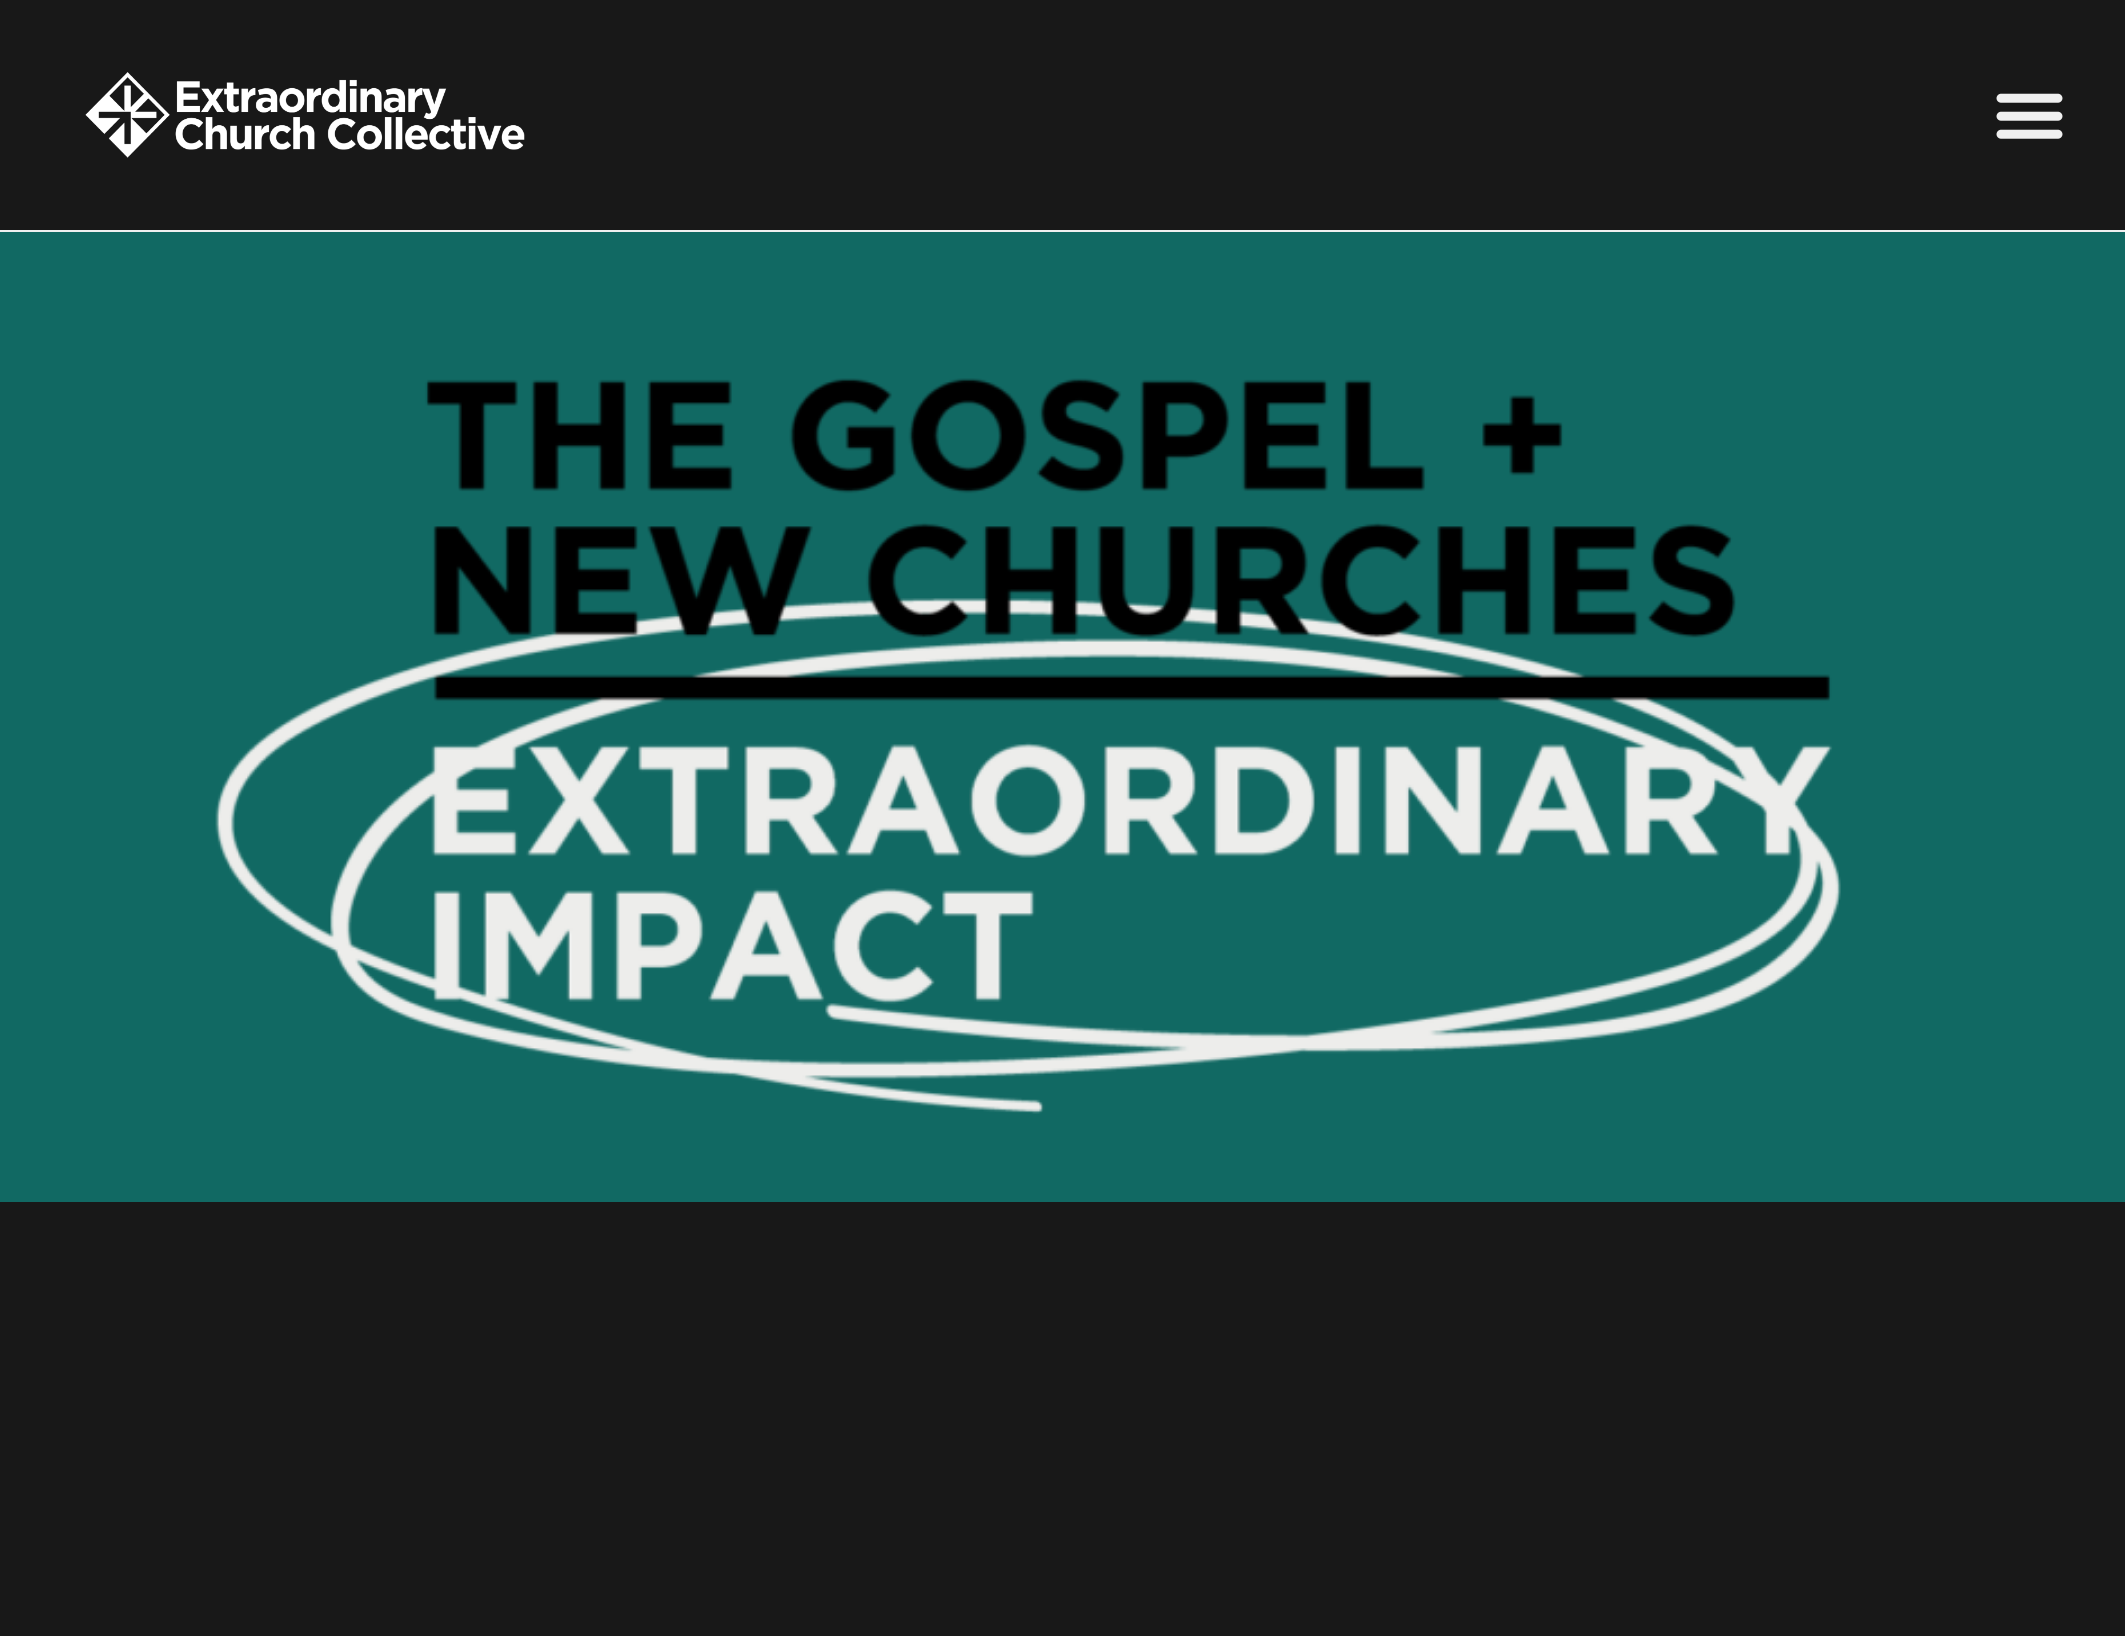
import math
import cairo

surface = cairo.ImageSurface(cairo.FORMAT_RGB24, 2125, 1636)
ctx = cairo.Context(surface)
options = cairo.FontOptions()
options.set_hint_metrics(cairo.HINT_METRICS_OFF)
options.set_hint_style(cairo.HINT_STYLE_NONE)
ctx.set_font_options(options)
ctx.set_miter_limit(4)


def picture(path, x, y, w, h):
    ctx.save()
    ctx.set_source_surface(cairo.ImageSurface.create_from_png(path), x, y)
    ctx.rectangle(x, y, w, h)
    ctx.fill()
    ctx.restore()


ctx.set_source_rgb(0.094, 0.094, 0.094)
ctx.paint()
ctx.set_source_rgb(0.941, 0.941, 0.941)
ctx.rectangle(0, 230, 2125, 2)
ctx.fill()
picture("img1.png", 85, 72, 440, 86)
picture("img2.png", 1996, 93, 67, 46)
ctx.set_source_rgb(0.067, 0.412, 0.388)
ctx.rectangle(0, 232, 2125, 970)
ctx.fill()
picture("img3.png", 215, 378, 1626, 736)
surface.write_to_png("page.png")
